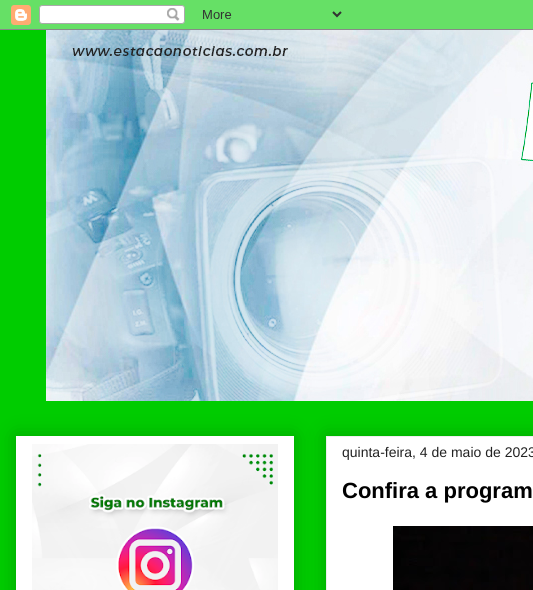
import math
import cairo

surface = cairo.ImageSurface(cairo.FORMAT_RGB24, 533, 590)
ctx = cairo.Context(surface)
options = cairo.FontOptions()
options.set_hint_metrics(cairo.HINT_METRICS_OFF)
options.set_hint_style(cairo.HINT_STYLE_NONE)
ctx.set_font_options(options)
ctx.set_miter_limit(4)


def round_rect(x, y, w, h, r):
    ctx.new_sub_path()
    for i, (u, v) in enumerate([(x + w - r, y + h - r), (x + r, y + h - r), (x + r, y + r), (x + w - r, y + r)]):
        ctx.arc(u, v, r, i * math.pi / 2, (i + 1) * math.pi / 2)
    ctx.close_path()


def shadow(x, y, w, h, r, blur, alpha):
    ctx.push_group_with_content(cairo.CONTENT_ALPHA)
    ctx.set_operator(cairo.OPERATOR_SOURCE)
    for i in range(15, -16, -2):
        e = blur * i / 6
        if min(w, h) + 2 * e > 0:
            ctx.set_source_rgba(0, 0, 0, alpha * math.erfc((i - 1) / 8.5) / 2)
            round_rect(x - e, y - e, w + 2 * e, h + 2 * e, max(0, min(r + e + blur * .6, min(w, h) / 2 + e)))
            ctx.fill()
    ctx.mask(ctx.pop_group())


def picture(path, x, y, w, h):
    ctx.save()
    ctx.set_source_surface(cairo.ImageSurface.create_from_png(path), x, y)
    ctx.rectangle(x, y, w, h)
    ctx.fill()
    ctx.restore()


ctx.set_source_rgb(0, 0.8, 0)
ctx.paint()
picture("img1.png", 0, 0, 533, 30)
picture("img2.png", 46, 30, 487, 371)
ctx.set_source_rgb(0, 0, 0)
shadow(16, 436, 278, 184, 0, 10, 0.2)
ctx.set_source_rgb(1, 1, 1)
ctx.rectangle(16, 436, 278, 154)
ctx.fill()
picture("img3.png", 32, 444, 246, 146)
ctx.set_source_rgb(0, 0, 0)
shadow(326, 436, 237, 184, 0, 10, 0.2)
ctx.set_source_rgb(1, 1, 1)
ctx.rectangle(326.5, 436.5, 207, 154)
ctx.fill_preserve()
ctx.set_source_rgb(0.933, 0.933, 0.933)
ctx.set_line_width(1)
ctx.stroke()
ctx.select_font_face("Liberation Sans")
ctx.set_font_size(14)
ctx.set_source_rgb(0.133, 0.133, 0.133)
ctx.move_to(342, 457)
ctx.show_text("quinta-feira, 4 de maio de 2023")
ctx.select_font_face("Liberation Sans", cairo.FONT_SLANT_NORMAL, cairo.FONT_WEIGHT_BOLD)
ctx.set_font_size(22)
ctx.set_source_rgb(0, 0, 0)
ctx.move_to(342, 498)
ctx.show_text("Confira a program")
picture("img4.png", 393, 526, 140, 64)
surface.write_to_png("page.png")
